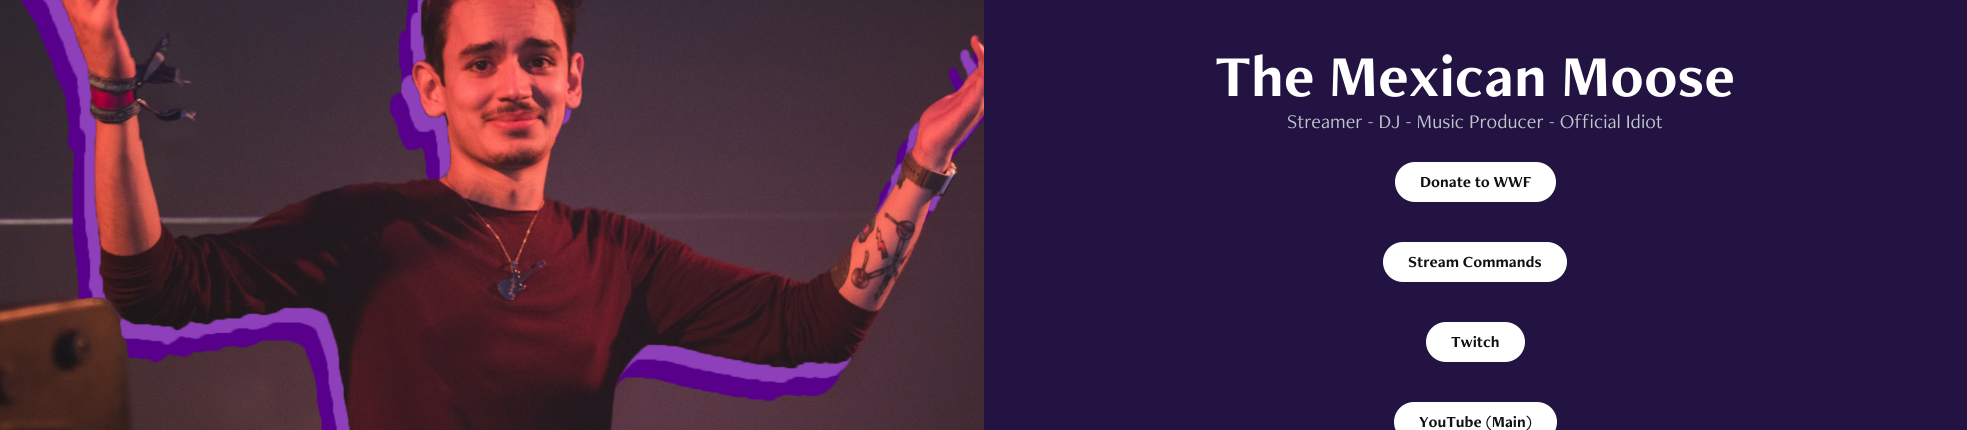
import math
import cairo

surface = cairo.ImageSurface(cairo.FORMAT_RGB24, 1967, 430)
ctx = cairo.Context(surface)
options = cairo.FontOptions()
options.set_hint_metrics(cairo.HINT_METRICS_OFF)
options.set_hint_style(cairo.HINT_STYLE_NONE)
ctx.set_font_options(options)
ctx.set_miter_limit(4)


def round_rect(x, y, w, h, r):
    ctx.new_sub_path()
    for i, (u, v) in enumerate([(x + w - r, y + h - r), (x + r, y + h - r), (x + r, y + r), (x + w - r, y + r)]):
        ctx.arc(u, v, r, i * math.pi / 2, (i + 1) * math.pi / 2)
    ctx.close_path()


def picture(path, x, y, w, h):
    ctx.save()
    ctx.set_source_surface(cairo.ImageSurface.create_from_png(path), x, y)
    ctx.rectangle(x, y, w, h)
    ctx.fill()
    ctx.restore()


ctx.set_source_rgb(0.133, 0.078, 0.259)
ctx.paint()
picture("img1.png", 0, 0, 984, 430)
ctx.select_font_face("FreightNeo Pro", cairo.FONT_SLANT_NORMAL, cairo.FONT_WEIGHT_BOLD)
ctx.set_font_size(60)
ctx.set_source_rgb(1, 1, 1)
ctx.move_to(1215, 96)
ctx.show_text("The Mexican Moose")
ctx.select_font_face("FreightNeo Pro")
ctx.set_font_size(20)
ctx.set_source_rgb(0.753, 0.776, 0.8)
ctx.move_to(1287, 128)
ctx.show_text("Streamer - DJ - Music Producer - Official Idiot")
ctx.set_source_rgb(1, 1, 1)
round_rect(1395, 162, 161, 40, 20)
ctx.fill()
ctx.select_font_face("FreightNeo Pro", cairo.FONT_SLANT_NORMAL, cairo.FONT_WEIGHT_BOLD)
ctx.set_font_size(16)
ctx.set_source_rgb(0.067, 0.067, 0.067)
ctx.move_to(1420, 187)
ctx.show_text("Donate to WWF")
ctx.set_source_rgb(1, 1, 1)
round_rect(1383, 242, 184, 40, 20)
ctx.fill()
ctx.set_source_rgb(0.067, 0.067, 0.067)
ctx.move_to(1408, 267)
ctx.show_text("Stream Commands")
ctx.set_source_rgb(1, 1, 1)
round_rect(1426, 322, 99, 40, 20)
ctx.fill()
ctx.set_source_rgb(0.067, 0.067, 0.067)
ctx.move_to(1451, 347)
ctx.show_text("Twitch")
ctx.set_source_rgb(1, 1, 1)
round_rect(1394, 402, 163, 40, 20)
ctx.fill()
ctx.set_source_rgb(0.067, 0.067, 0.067)
ctx.move_to(1419, 427)
ctx.show_text("YouTube (Main)")
surface.write_to_png("page.png")
